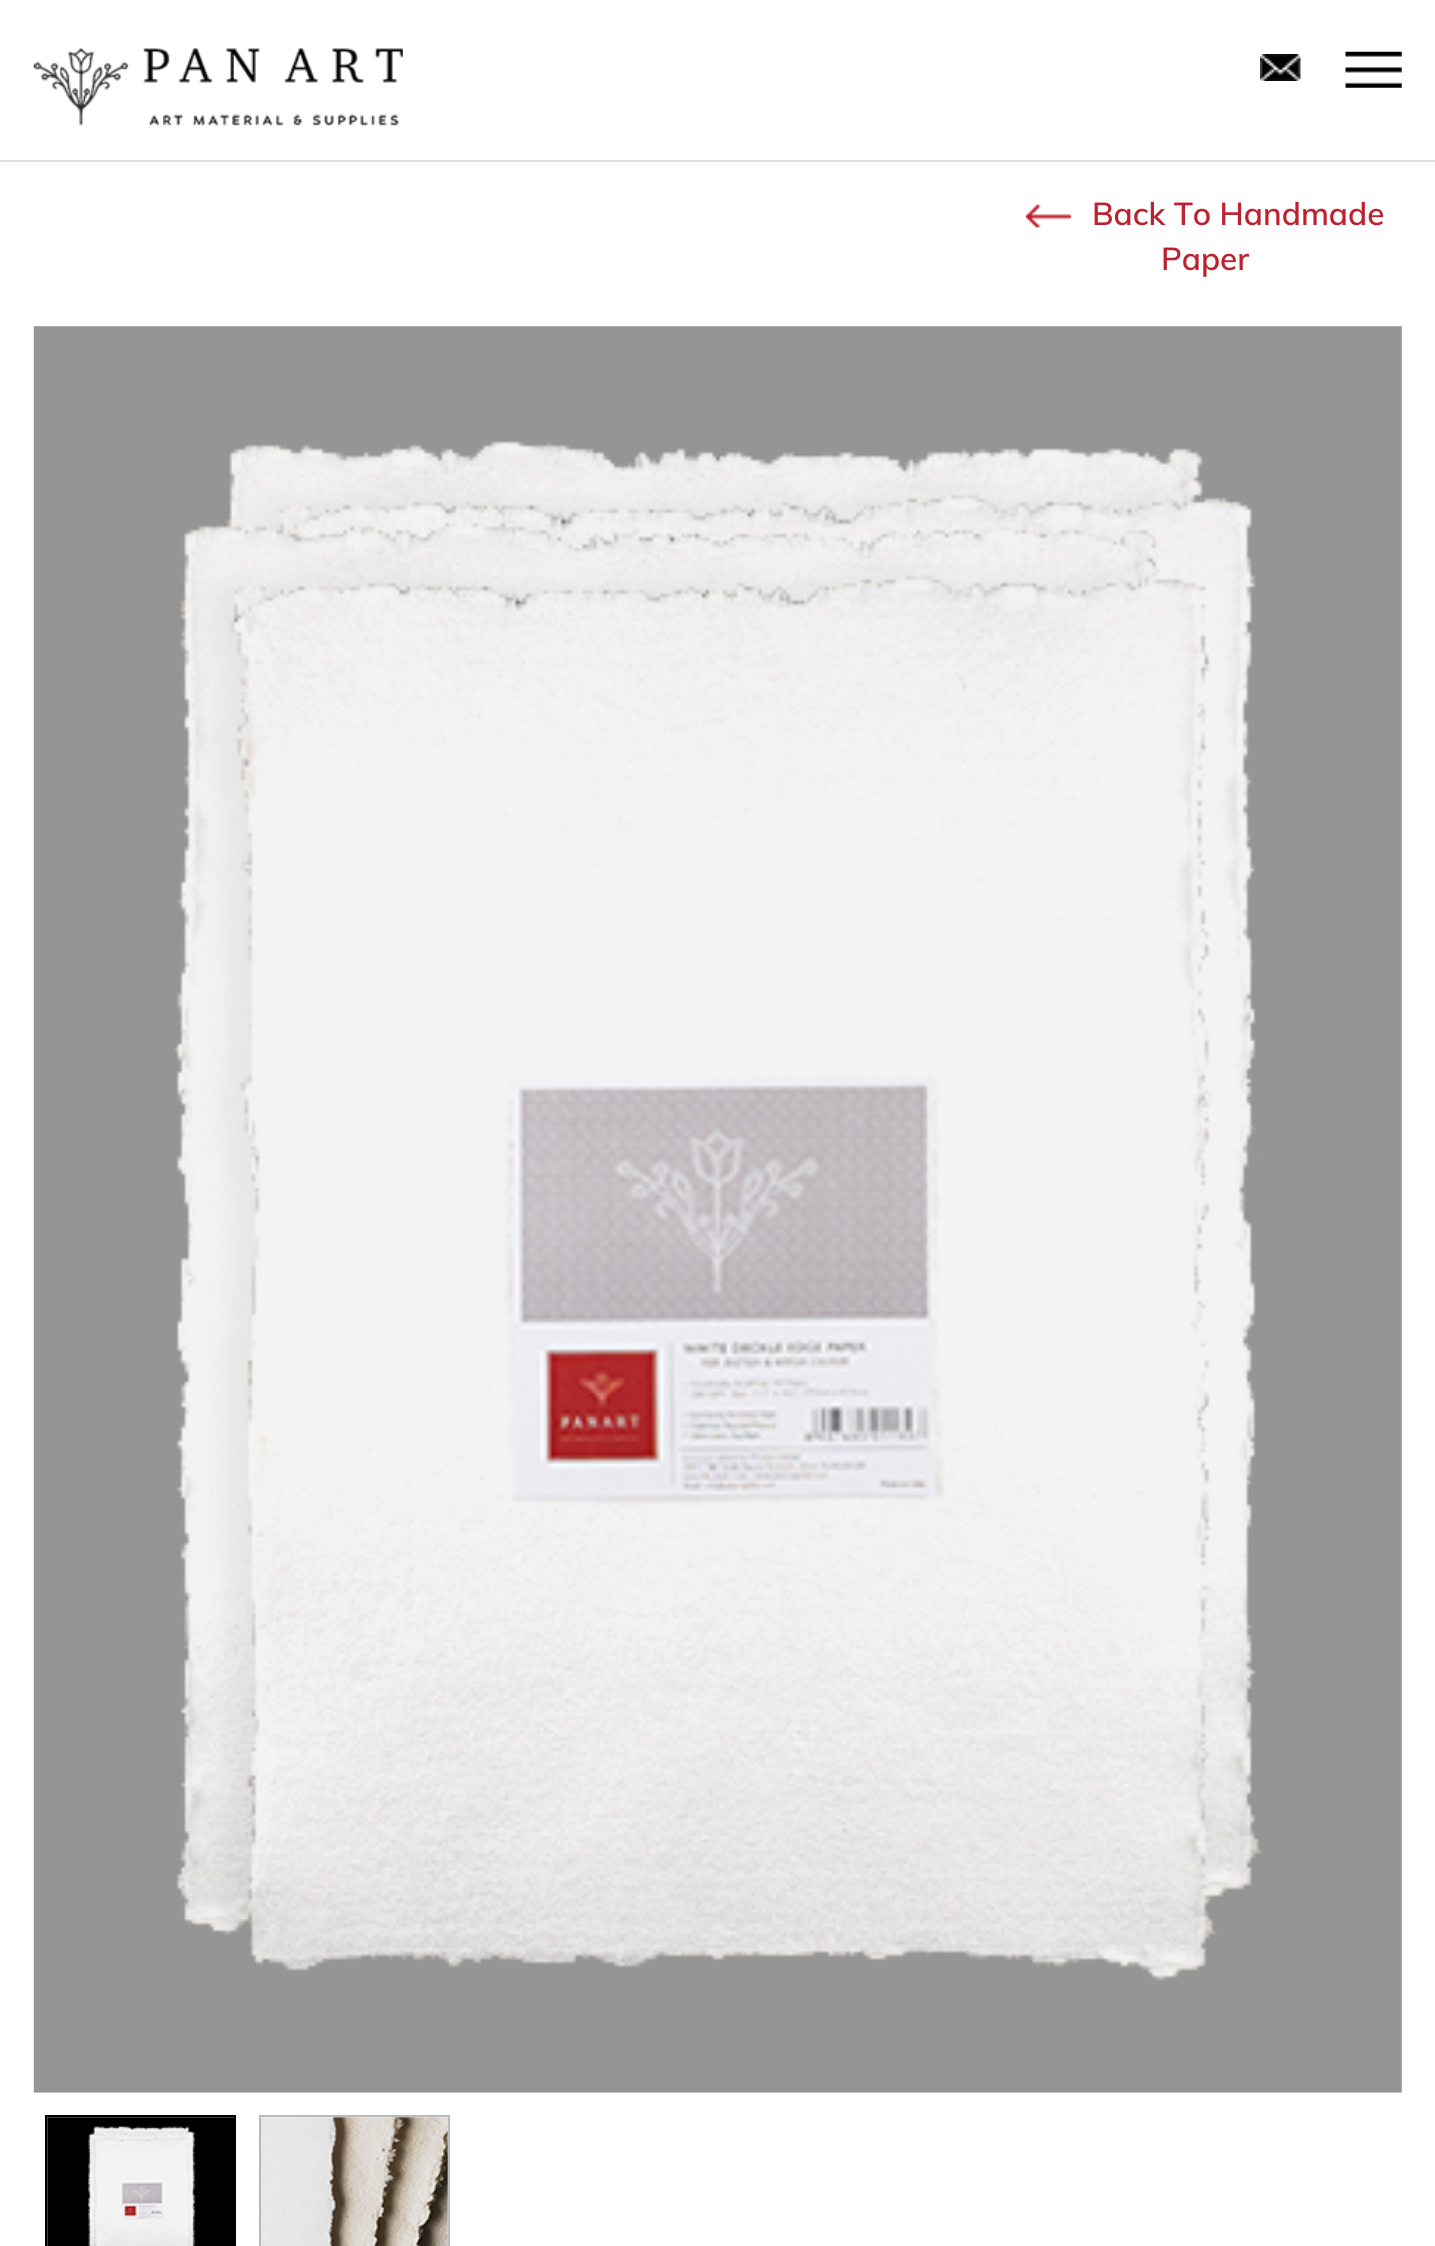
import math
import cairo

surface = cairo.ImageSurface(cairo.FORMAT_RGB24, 1435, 2246)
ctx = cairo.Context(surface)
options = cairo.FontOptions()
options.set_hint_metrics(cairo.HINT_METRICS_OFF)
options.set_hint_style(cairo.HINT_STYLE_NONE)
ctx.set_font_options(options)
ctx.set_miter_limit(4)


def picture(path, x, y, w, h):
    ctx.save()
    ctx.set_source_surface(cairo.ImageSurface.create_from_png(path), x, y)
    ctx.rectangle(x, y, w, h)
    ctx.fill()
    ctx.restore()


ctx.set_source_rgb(1, 1, 1)
ctx.paint()
ctx.set_source_rgb(0.871, 0.871, 0.871)
ctx.rectangle(0, 160, 1435, 2)
ctx.fill()
picture("img1.png", 33, 47, 370, 79)
picture("img2.png", 1260, 54, 41, 27)
picture("img3.png", 1345, 51, 57, 37)
picture("img4.png", 1026, 204, 45, 24)
ctx.select_font_face("Muli SemiBold")
ctx.set_font_size(31.5)
ctx.set_source_rgb(0.741, 0.125, 0.18)
ctx.move_to(1092, 225)
ctx.show_text("Back To Handmade")
ctx.move_to(1161, 270)
ctx.show_text("Paper")
ctx.set_source_rgb(0.933, 0.929, 0.925)
ctx.rectangle(34, 326, 1368, 1767)
ctx.fill()
picture("img5.png", 33, 326, 1369, 1767)
ctx.rectangle(46, 2116, 189, 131)
ctx.set_source_rgb(0, 0, 0)
ctx.stroke()
picture("img6.png", 47, 2117, 187, 129)
ctx.rectangle(260, 2116, 189, 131)
ctx.set_source_rgb(0.729, 0.729, 0.729)
ctx.stroke()
picture("img7.png", 261, 2117, 187, 129)
surface.write_to_png("page.png")
